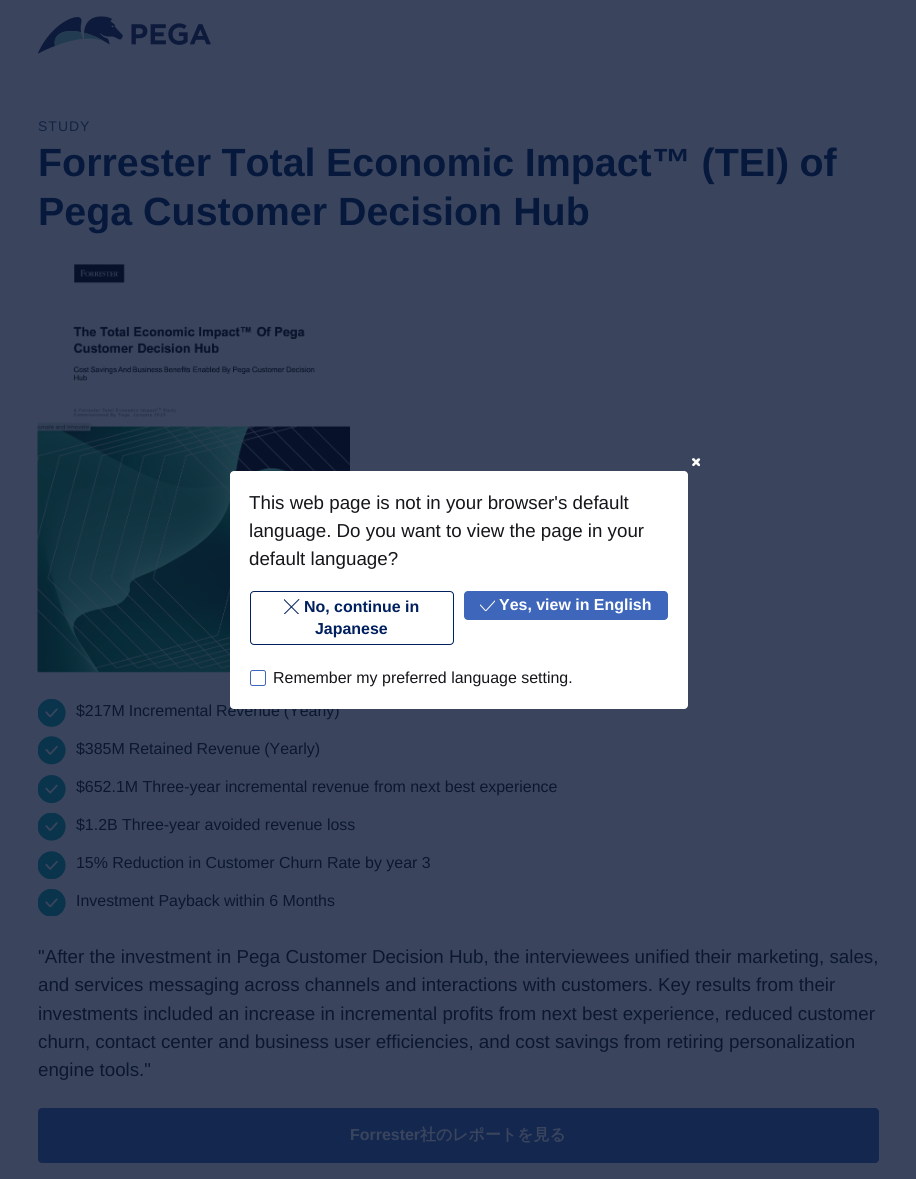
import math
import cairo

surface = cairo.ImageSurface(cairo.FORMAT_RGB24, 916, 1179)
ctx = cairo.Context(surface)
options = cairo.FontOptions()
options.set_hint_metrics(cairo.HINT_METRICS_OFF)
options.set_hint_style(cairo.HINT_STYLE_NONE)
ctx.set_font_options(options)
ctx.set_miter_limit(4)


def spaced_text(x, y, s, letter, word):
    ctx.move_to(x, y)
    for ch in s:
        ctx.show_text(ch)
        ctx.rel_move_to(letter + word * (ch == ' '), 0)


def round_rect(x, y, w, h, r):
    ctx.new_sub_path()
    for i, (u, v) in enumerate([(x + w - r, y + h - r), (x + r, y + h - r), (x + r, y + r), (x + w - r, y + r)]):
        ctx.arc(u, v, r, i * math.pi / 2, (i + 1) * math.pi / 2)
    ctx.close_path()


def picture(path, x, y, w, h):
    ctx.save()
    ctx.set_source_surface(cairo.ImageSurface.create_from_png(path), x, y)
    ctx.rectangle(x, y, w, h)
    ctx.fill()
    ctx.restore()


ctx.set_source_rgb(0.227, 0.271, 0.365)
ctx.paint()
picture("img1.png", 38, 16, 173, 38)
ctx.select_font_face("Liberation Sans")
ctx.set_font_size(14)
ctx.set_source_rgb(0.067, 0.133, 0.263)
spaced_text(38, 131, "STUDY", 1, 0)
ctx.select_font_face("Liberation Sans", cairo.FONT_SLANT_NORMAL, cairo.FONT_WEIGHT_BOLD)
ctx.set_font_size(39.4)
ctx.set_source_rgb(0.027, 0.098, 0.239)
spaced_text(38, 176, "Forrester Total Economic Impact™ (TEI) of", 0, -0.5)
ctx.move_to(38, 225)
ctx.show_text("Pega Customer Decision Hub")
picture("img2.png", 37, 264, 313, 409)
picture("img3.png", 38, 699, 28, 28)
ctx.select_font_face("Liberation Sans")
ctx.set_font_size(15.95)
ctx.set_source_rgb(0.043, 0.09, 0.184)
spaced_text(76, 716, "$217M Incremental Revenue (Yearly)", 0, -0.5)
picture("img4.png", 38, 736, 28, 29)
spaced_text(76, 754, "$385M Retained Revenue (Yearly)", 0, -0.5)
picture("img5.png", 38, 775, 28, 28)
ctx.move_to(76, 792)
ctx.show_text("$652.1M Three-year incremental revenue from next best experience")
picture("img6.png", 38, 813, 28, 28)
ctx.move_to(76, 830)
ctx.show_text("$1.2B Three-year avoided revenue loss")
picture("img7.png", 38, 851, 28, 28)
ctx.move_to(76, 868)
ctx.show_text("15% Reduction in Customer Churn Rate by year 3")
picture("img8.png", 38, 889, 28, 27)
ctx.move_to(76, 906)
ctx.show_text("Investment Payback within 6 Months")
ctx.set_font_size(18.75)
ctx.move_to(38, 963)
ctx.show_text("\"After the investment in Pega Customer Decision Hub, the interviewees unified their marketing, sales,")
ctx.move_to(38, 991)
ctx.show_text("and services messaging across channels and interactions with customers. Key results from their")
ctx.move_to(38, 1020)
ctx.show_text("investments included an increase in incremental profits from next best experience, reduced customer")
ctx.move_to(38, 1048)
ctx.show_text("churn, contact center and business user efficiencies, and cost savings from retiring personalization")
ctx.move_to(38, 1076)
ctx.show_text("engine tools.\"")
ctx.set_source_rgb(0.078, 0.153, 0.31)
round_rect(38, 1108, 841, 55, 4)
ctx.fill()
ctx.select_font_face("Liberation Sans", cairo.FONT_SLANT_NORMAL, cairo.FONT_WEIGHT_BOLD)
ctx.set_font_size(15.95)
ctx.set_source_rgb(0.227, 0.271, 0.365)
ctx.move_to(350, 1140)
ctx.show_text("Forrester")
ctx.select_font_face("WenQuanYi Zen Hei", cairo.FONT_SLANT_NORMAL, cairo.FONT_WEIGHT_BOLD)
ctx.move_to(420, 1140)
ctx.show_text("社のレポートを見る")
ctx.set_source_rgb(1, 1, 1)
round_rect(230, 471, 458, 238, 4)
ctx.fill()
ctx.new_path()
ctx.move_to(694.5, 458.5)
ctx.line_to(697, 461.5)
ctx.curve_to(698, 462, 700.5, 464, 700, 465.5)
ctx.curve_to(699, 468, 695, 463, 694.5, 462)
ctx.line_to(692, 460)
ctx.curve_to(691.5, 458.5, 693.5, 457.5, 694.5, 458.5)
ctx.close_path()
ctx.fill()
ctx.new_path()
ctx.move_to(692.5, 464)
ctx.line_to(695, 461.5)
ctx.curve_to(696, 460.5, 697.5, 457.5, 699.5, 458.5)
ctx.curve_to(702, 459.5, 696.5, 463.5, 696, 464)
ctx.line_to(694, 466)
ctx.curve_to(692.5, 466.5, 691.5, 465, 692.5, 464)
ctx.close_path()
ctx.fill()
ctx.select_font_face("Liberation Sans")
ctx.set_font_size(18.75)
ctx.set_source_rgb(0.082, 0.086, 0.098)
ctx.move_to(249, 509)
ctx.show_text("This web page is not in your browser's default")
ctx.move_to(249, 537)
ctx.show_text("language. Do you want to view the page in your")
ctx.move_to(249, 565)
ctx.show_text("default language?")
round_rect(250.5, 591.5, 203, 53, 3.5)
ctx.set_source_rgb(0, 0.122, 0.373)
ctx.set_line_width(1)
ctx.stroke()
picture("img9.png", 284, 599, 16, 15)
ctx.select_font_face("Liberation Sans", cairo.FONT_SLANT_NORMAL, cairo.FONT_WEIGHT_BOLD)
ctx.set_font_size(15.95)
ctx.move_to(304, 612)
ctx.show_text("No, continue in")
ctx.move_to(315, 634)
ctx.show_text("Japanese")
ctx.set_source_rgb(0.243, 0.404, 0.733)
round_rect(464, 591, 204, 29, 4)
ctx.fill()
picture("img10.png", 480, 600, 15, 12)
ctx.set_source_rgb(1, 1, 1)
ctx.move_to(499, 610)
ctx.show_text("Yes, view in English")
round_rect(250.5, 670.5, 15, 15, 2)
ctx.set_source_rgb(0.243, 0.404, 0.733)
ctx.stroke()
ctx.select_font_face("Liberation Sans")
ctx.set_source_rgb(0.082, 0.086, 0.098)
ctx.move_to(273, 683)
ctx.show_text("Remember my preferred language setting.")
surface.write_to_png("page.png")
